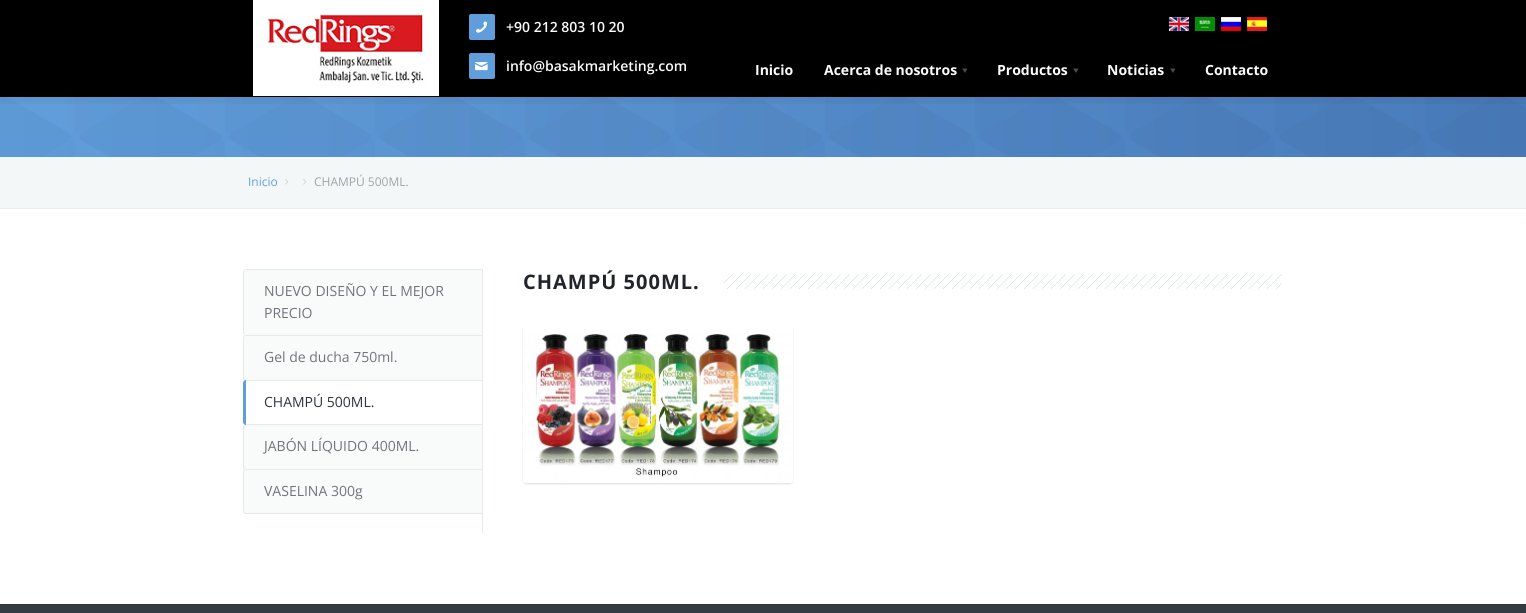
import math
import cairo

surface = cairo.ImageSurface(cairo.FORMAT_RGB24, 1526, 613)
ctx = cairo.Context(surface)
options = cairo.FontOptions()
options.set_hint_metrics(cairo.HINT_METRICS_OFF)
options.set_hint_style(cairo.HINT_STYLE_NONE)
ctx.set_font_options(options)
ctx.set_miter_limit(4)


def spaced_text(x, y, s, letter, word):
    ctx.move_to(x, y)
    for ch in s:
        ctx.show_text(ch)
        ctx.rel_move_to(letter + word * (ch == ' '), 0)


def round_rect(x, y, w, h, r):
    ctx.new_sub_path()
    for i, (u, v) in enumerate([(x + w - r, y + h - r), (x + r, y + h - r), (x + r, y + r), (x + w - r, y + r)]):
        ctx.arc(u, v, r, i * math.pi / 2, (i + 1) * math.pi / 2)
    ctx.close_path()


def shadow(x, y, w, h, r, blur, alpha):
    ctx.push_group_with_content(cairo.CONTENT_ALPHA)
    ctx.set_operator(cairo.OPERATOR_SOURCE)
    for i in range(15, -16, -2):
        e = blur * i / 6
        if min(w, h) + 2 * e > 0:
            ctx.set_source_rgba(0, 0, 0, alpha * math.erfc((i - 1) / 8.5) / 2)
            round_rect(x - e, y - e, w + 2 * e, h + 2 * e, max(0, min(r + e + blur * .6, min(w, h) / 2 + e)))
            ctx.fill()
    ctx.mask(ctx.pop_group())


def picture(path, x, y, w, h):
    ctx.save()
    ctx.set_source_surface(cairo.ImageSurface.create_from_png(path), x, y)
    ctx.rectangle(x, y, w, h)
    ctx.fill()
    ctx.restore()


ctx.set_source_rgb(1, 1, 1)
ctx.paint()
ctx.set_source_rgb(0, 0, 0)
ctx.rectangle(0, 0, 1526, 97)
ctx.fill()
gradient = cairo.LinearGradient(0, 127, 1526, 126)
gradient.add_color_stop_rgba(0, 0.376, 0.616, 0.859, 1)
gradient.add_color_stop_rgba(1, 0.282, 0.478, 0.725, 1)
ctx.set_source(gradient)
ctx.rectangle(0, 97, 1526, 60)
ctx.fill()
picture("img8.png", 0, 97, 1526, 60)
ctx.save()
ctx.rectangle(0, 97, 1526, 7)
ctx.clip()
ctx.set_source_rgb(0, 0, 0)
shadow(0, 1, 1526, 97, 0, 7.5, 0.1)
ctx.restore()
picture("img1.png", 253, 0, 186, 96)
ctx.set_source_rgb(0.376, 0.616, 0.859)
round_rect(469, 14, 26, 26, 2)
ctx.fill()
picture("img2.png", 476, 21, 12, 12)
ctx.select_font_face("Open Sans SemiBold")
ctx.set_font_size(14)
ctx.set_source_rgb(0.984, 0.984, 0.984)
ctx.move_to(506, 32)
ctx.show_text("+90 212 803 10 20")
ctx.set_source_rgb(0.376, 0.616, 0.859)
round_rect(469, 53, 26, 26, 2)
ctx.fill()
picture("img3.png", 475, 62, 13, 9)
ctx.set_source_rgb(0.984, 0.984, 0.984)
ctx.move_to(506, 71)
ctx.show_text("info@basakmarketing.com")
picture("img4.png", 1169, 17, 20, 14)
picture("img5.png", 1195, 17, 20, 14)
picture("img6.png", 1221, 17, 20, 14)
picture("img7.png", 1247, 17, 20, 14)
ctx.select_font_face("Open Sans", cairo.FONT_SLANT_NORMAL, cairo.FONT_WEIGHT_BOLD)
ctx.move_to(755, 75)
ctx.show_text("Inicio")
ctx.move_to(824, 75)
ctx.show_text("Acerca de nosotros")
ctx.set_source_rgb(0.294, 0.294, 0.294)
ctx.new_path()
ctx.move_to(967.5, 68.5)
ctx.line_to(965, 73)
ctx.line_to(962, 68.5)
ctx.close_path()
ctx.fill()
ctx.set_source_rgb(0.984, 0.984, 0.984)
ctx.move_to(997, 75)
ctx.show_text("Productos")
ctx.set_source_rgb(0.294, 0.294, 0.294)
ctx.new_path()
ctx.move_to(1078.5, 68.5)
ctx.line_to(1076, 73)
ctx.line_to(1073, 68.5)
ctx.close_path()
ctx.fill()
ctx.set_source_rgb(0.984, 0.984, 0.984)
ctx.move_to(1107, 75)
ctx.show_text("Noticias")
ctx.set_source_rgb(0.294, 0.294, 0.294)
ctx.new_path()
ctx.move_to(1175.5, 68.5)
ctx.line_to(1173, 73)
ctx.line_to(1170, 68.5)
ctx.close_path()
ctx.fill()
ctx.set_source_rgb(0.984, 0.984, 0.984)
ctx.move_to(1205, 75)
ctx.show_text("Contacto")
ctx.set_source_rgb(0.957, 0.965, 0.965)
ctx.rectangle(0, 157, 1526, 51)
ctx.fill()
ctx.set_source_rgb(0.902, 0.918, 0.918)
ctx.rectangle(0, 208, 1526, 1)
ctx.fill()
ctx.select_font_face("Open Sans")
ctx.set_font_size(12)
ctx.set_source_rgb(0.376, 0.616, 0.859)
ctx.move_to(248, 186)
ctx.show_text("Inicio")
picture("img9.png", 285, 179, 4, 6)
picture("img9.png", 303, 179, 4, 6)
ctx.set_source_rgb(0.612, 0.647, 0.671)
ctx.move_to(314, 186)
ctx.show_text("CHAMPÚ 500ML.")
ctx.set_source_rgb(0.973, 0.98, 0.98)
ctx.new_path()
ctx.move_to(246, 424.5)
ctx.line_to(482.5, 424.5)
ctx.line_to(482.5, 469.5)
ctx.line_to(246, 469.5)
ctx.curve_to(244.5, 469.5, 243.5, 468.5, 243.5, 467)
ctx.line_to(243.5, 427)
ctx.curve_to(243.5, 425.5, 244.5, 424.5, 246, 424.5)
ctx.close_path()
ctx.fill_preserve()
ctx.set_source_rgb(0.898, 0.918, 0.918)
ctx.set_line_width(1)
ctx.stroke()
ctx.set_source_rgb(0.973, 0.98, 0.98)
ctx.new_path()
ctx.move_to(246, 469.5)
ctx.line_to(482.5, 469.5)
ctx.line_to(482.5, 513.5)
ctx.line_to(246, 513.5)
ctx.curve_to(244.5, 513.5, 243.5, 512.5, 243.5, 511)
ctx.line_to(243.5, 472)
ctx.curve_to(243.5, 470.5, 244.5, 469.5, 246, 469.5)
ctx.close_path()
ctx.fill_preserve()
ctx.set_source_rgb(0.898, 0.918, 0.918)
ctx.stroke()
ctx.rectangle(482, 381, 1, 153)
ctx.fill()
ctx.select_font_face("Open Sans", cairo.FONT_SLANT_NORMAL, cairo.FONT_WEIGHT_BOLD)
ctx.set_font_size(20)
ctx.set_source_rgb(0.129, 0.145, 0.169)
spaced_text(523, 289, "CHAMPÚ 500ML.", 1, 0)
picture("img10.png", 724, 274, 558, 15)
ctx.save()
ctx.set_fill_rule(cairo.FILL_RULE_EVEN_ODD)
ctx.new_path()
ctx.move_to(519, 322)
ctx.line_to(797, 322)
ctx.line_to(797, 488)
ctx.line_to(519, 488)
ctx.close_path()
ctx.move_to(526, 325)
ctx.line_to(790, 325)
ctx.curve_to(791.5, 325, 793, 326.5, 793, 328)
ctx.line_to(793, 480)
ctx.curve_to(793, 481.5, 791.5, 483, 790, 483)
ctx.line_to(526, 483)
ctx.curve_to(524.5, 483, 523, 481.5, 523, 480)
ctx.line_to(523, 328)
ctx.curve_to(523, 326.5, 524.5, 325, 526, 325)
ctx.close_path()
ctx.clip()
ctx.set_source_rgb(0, 0, 0)
shadow(523, 326, 270, 158, 3, 1, 0.07)
shadow(523, 326, 270, 158, 3, 1, 0.07)
ctx.restore()
picture("img11.png", 523, 333, 270, 150)
ctx.set_source_rgb(0.973, 0.98, 0.98)
ctx.new_path()
ctx.move_to(246, 269.5)
ctx.line_to(482.5, 269.5)
ctx.line_to(482.5, 335.5)
ctx.line_to(246, 335.5)
ctx.curve_to(244.5, 335.5, 243.5, 334.5, 243.5, 333)
ctx.line_to(243.5, 272)
ctx.curve_to(243.5, 270.5, 244.5, 269.5, 246, 269.5)
ctx.close_path()
ctx.fill_preserve()
ctx.set_source_rgb(0.898, 0.918, 0.918)
ctx.stroke()
ctx.select_font_face("Open Sans")
ctx.set_font_size(14)
ctx.set_source_rgb(0.439, 0.459, 0.478)
ctx.move_to(264, 296)
ctx.show_text("NUEVO DISEÑO Y EL MEJOR")
ctx.move_to(264, 318)
ctx.show_text("PRECIO")
ctx.set_source_rgb(0.973, 0.98, 0.98)
ctx.new_path()
ctx.move_to(246, 335.5)
ctx.line_to(482.5, 335.5)
ctx.line_to(482.5, 380.5)
ctx.line_to(246, 380.5)
ctx.curve_to(244.5, 380.5, 243.5, 379.5, 243.5, 378)
ctx.line_to(243.5, 338)
ctx.curve_to(243.5, 336.5, 244.5, 335.5, 246, 335.5)
ctx.close_path()
ctx.fill_preserve()
ctx.set_source_rgb(0.898, 0.918, 0.918)
ctx.stroke()
ctx.set_source_rgb(0.439, 0.459, 0.478)
ctx.move_to(264, 362)
ctx.show_text("Gel de ducha 750ml.")
ctx.set_source_rgb(0.898, 0.918, 0.918)
ctx.set_fill_rule(cairo.FILL_RULE_EVEN_ODD)
ctx.new_path()
ctx.move_to(246, 380)
ctx.line_to(483, 380)
ctx.line_to(483, 425)
ctx.line_to(246, 425)
ctx.curve_to(244, 425, 243, 424, 243, 422)
ctx.line_to(243, 383)
ctx.curve_to(243, 381, 244, 380, 246, 380)
ctx.close_path()
ctx.move_to(246, 381)
ctx.line_to(483, 381)
ctx.line_to(483, 424)
ctx.line_to(246, 424)
ctx.curve_to(245, 424, 244, 423, 244, 422)
ctx.line_to(244, 383)
ctx.curve_to(244, 382, 245, 381, 246, 381)
ctx.close_path()
ctx.fill()
ctx.set_source_rgb(0.376, 0.616, 0.859)
ctx.new_path()
ctx.move_to(246, 380)
ctx.line_to(246, 425)
ctx.curve_to(244.5, 425, 243, 423.5, 243, 422)
ctx.line_to(243, 383)
ctx.curve_to(243, 381.5, 244.5, 380, 246, 380)
ctx.close_path()
ctx.fill()
ctx.set_source_rgb(0.18, 0.204, 0.235)
ctx.move_to(264, 407)
ctx.show_text("CHAMPÚ 500ML.")
ctx.set_source_rgb(0.439, 0.459, 0.478)
ctx.move_to(264, 451)
ctx.show_text("JABÓN LÍQUIDO 400ML.")
ctx.move_to(264, 496)
ctx.show_text("VASELINA 300g")
ctx.set_source_rgb(0.208, 0.231, 0.263)
ctx.rectangle(0, 605, 1526, 8)
ctx.fill()
ctx.set_source_rgb(0.18, 0.204, 0.227)
ctx.rectangle(0, 604, 1526, 1)
ctx.fill()
surface.write_to_png("page.png")
